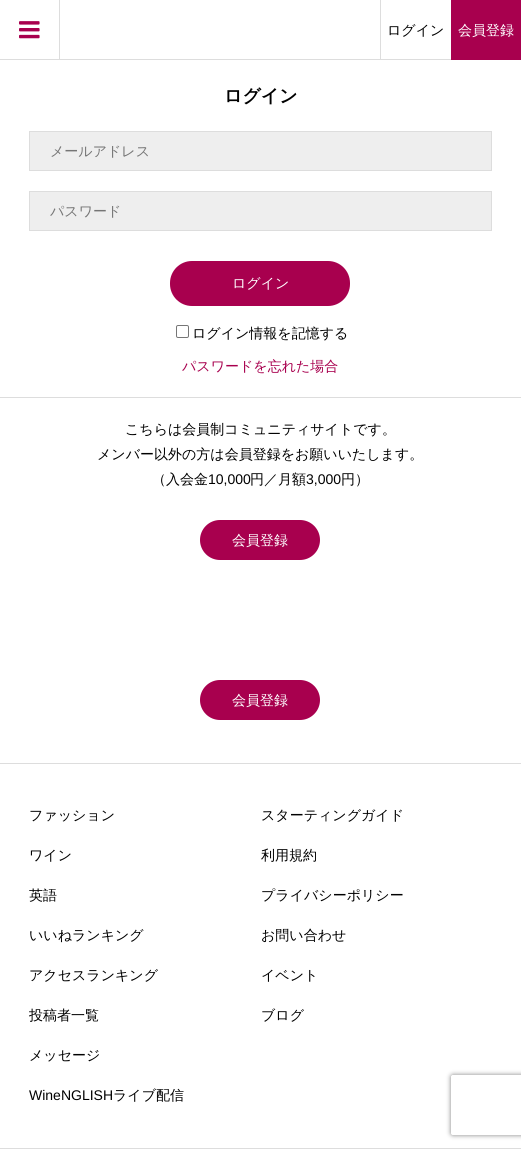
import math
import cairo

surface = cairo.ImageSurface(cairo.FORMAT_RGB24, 521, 1149)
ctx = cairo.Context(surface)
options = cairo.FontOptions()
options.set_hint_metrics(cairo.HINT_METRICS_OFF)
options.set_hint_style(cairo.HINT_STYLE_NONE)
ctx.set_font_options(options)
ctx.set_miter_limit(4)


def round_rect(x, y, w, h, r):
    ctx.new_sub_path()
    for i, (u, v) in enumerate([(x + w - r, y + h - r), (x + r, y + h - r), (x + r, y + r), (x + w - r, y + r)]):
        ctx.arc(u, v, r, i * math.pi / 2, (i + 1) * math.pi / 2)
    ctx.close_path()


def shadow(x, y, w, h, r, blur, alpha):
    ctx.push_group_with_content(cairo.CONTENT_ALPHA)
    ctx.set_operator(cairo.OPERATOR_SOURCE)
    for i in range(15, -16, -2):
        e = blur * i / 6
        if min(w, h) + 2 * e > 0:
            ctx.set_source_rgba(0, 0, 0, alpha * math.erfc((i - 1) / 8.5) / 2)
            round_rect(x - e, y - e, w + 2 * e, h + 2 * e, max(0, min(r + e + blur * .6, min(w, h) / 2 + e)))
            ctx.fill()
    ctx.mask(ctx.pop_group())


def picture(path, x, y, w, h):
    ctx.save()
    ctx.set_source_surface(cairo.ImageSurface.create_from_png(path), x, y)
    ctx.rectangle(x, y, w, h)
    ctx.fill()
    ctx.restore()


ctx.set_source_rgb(1, 1, 1)
ctx.paint()
ctx.set_source_rgb(0.867, 0.867, 0.867)
ctx.rectangle(0, 59, 451, 1)
ctx.fill()
ctx.rectangle(59, 0, 1, 60)
ctx.fill()
picture("img1.png", 19, 21, 21, 18)
ctx.rectangle(380, 0, 1, 60)
ctx.fill()
ctx.select_font_face("WenQuanYi Zen Hei Medium")
ctx.set_font_size(14)
ctx.set_source_rgb(0, 0, 0)
ctx.move_to(387, 35)
ctx.show_text("ログイン")
ctx.set_source_rgb(0.659, 0, 0.306)
ctx.rectangle(451, 0, 70, 60)
ctx.fill()
ctx.set_source_rgb(1, 1, 1)
ctx.move_to(458, 35)
ctx.show_text("会員登録")
ctx.select_font_face("WenQuanYi Zen Hei", cairo.FONT_SLANT_NORMAL, cairo.FONT_WEIGHT_BOLD)
ctx.set_font_size(18)
ctx.set_source_rgb(0, 0, 0)
ctx.move_to(224, 102)
ctx.show_text("ログイン")
ctx.set_source_rgb(0.933, 0.933, 0.933)
ctx.rectangle(29.5, 131.5, 462, 39)
ctx.fill_preserve()
ctx.set_source_rgb(0.867, 0.867, 0.867)
ctx.set_line_width(1)
ctx.stroke()
ctx.select_font_face("WenQuanYi Zen Hei Medium")
ctx.set_font_size(14)
ctx.set_source_rgb(0.459, 0.459, 0.459)
ctx.move_to(50, 156)
ctx.show_text("メールアドレス")
ctx.set_source_rgb(0.933, 0.933, 0.933)
ctx.rectangle(29.5, 191.5, 462, 39)
ctx.fill_preserve()
ctx.set_source_rgb(0.867, 0.867, 0.867)
ctx.stroke()
ctx.set_source_rgb(0.459, 0.459, 0.459)
ctx.move_to(50, 216)
ctx.show_text("パスワード")
ctx.set_source_rgb(0.659, 0, 0.306)
round_rect(170, 261, 180, 45, 22)
ctx.fill()
ctx.set_source_rgb(1, 1, 1)
ctx.move_to(232, 288)
ctx.show_text("ログイン")
round_rect(176.5, 325.5, 12, 12, 1.5)
ctx.set_source_rgb(0.463, 0.463, 0.463)
ctx.stroke()
ctx.set_source_rgb(0, 0, 0)
ctx.move_to(192, 338)
ctx.show_text("ログイン情報を記憶する")
ctx.set_source_rgb(0.659, 0, 0.306)
ctx.move_to(182, 371)
ctx.show_text("パスワードを忘れた場合")
ctx.set_source_rgb(0.867, 0.867, 0.867)
ctx.rectangle(0, 397, 521, 1)
ctx.fill()
ctx.set_source_rgb(0, 0, 0)
ctx.move_to(125, 434)
ctx.show_text("こちらは会員制コミュニティサイトです。")
ctx.move_to(97, 459)
ctx.show_text("メンバー以外の方は会員登録をお願いいたします。")
ctx.move_to(152, 484)
ctx.show_text("（入会金")
ctx.select_font_face("Liberation Sans")
ctx.move_to(208, 484)
ctx.show_text("10,000")
ctx.select_font_face("WenQuanYi Zen Hei Medium")
ctx.move_to(250, 484)
ctx.show_text("円／月額")
ctx.select_font_face("Liberation Sans")
ctx.move_to(306, 484)
ctx.show_text("3,000")
ctx.select_font_face("WenQuanYi Zen Hei Medium")
ctx.move_to(341, 484)
ctx.show_text("円）")
ctx.set_source_rgb(0.659, 0, 0.306)
round_rect(200, 520, 120, 40, 20)
ctx.fill()
ctx.set_source_rgb(1, 1, 1)
ctx.move_to(232, 545)
ctx.show_text("会員登録")
ctx.set_source_rgb(0.659, 0, 0.306)
round_rect(200, 680, 120, 40, 20)
ctx.fill()
ctx.set_source_rgb(1, 1, 1)
ctx.move_to(232, 705)
ctx.show_text("会員登録")
ctx.set_source_rgb(0.867, 0.867, 0.867)
ctx.rectangle(0, 763, 521, 1)
ctx.fill()
ctx.set_source_rgb(0, 0, 0)
ctx.move_to(29, 820)
ctx.show_text("ファッション")
ctx.move_to(29, 860)
ctx.show_text("ワイン")
ctx.move_to(29, 900)
ctx.show_text("英語")
ctx.move_to(29, 940)
ctx.show_text("いいねランキング")
ctx.move_to(29, 980)
ctx.show_text("アクセスランキング")
ctx.move_to(29, 1020)
ctx.show_text("投稿者一覧")
ctx.move_to(29, 1060)
ctx.show_text("メッセージ")
ctx.select_font_face("Liberation Sans")
ctx.move_to(29, 1100)
ctx.show_text("WineNGLISH")
ctx.select_font_face("WenQuanYi Zen Hei Medium")
ctx.move_to(113, 1100)
ctx.show_text("ライブ配信")
ctx.move_to(261, 820)
ctx.show_text("スターティングガイド")
ctx.move_to(261, 860)
ctx.show_text("利用規約")
ctx.move_to(261, 900)
ctx.show_text("プライバシーポリシー")
ctx.move_to(261, 940)
ctx.show_text("お問い合わせ")
ctx.move_to(261, 980)
ctx.show_text("イベント")
ctx.move_to(261, 1020)
ctx.show_text("ブログ")
ctx.set_source_rgb(0.867, 0.867, 0.867)
ctx.rectangle(0, 1148, 521, 1)
ctx.fill()
ctx.save()
ctx.set_fill_rule(cairo.FILL_RULE_EVEN_ODD)
ctx.new_path()
ctx.move_to(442, 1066)
ctx.line_to(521, 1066)
ctx.line_to(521, 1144)
ctx.line_to(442, 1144)
ctx.close_path()
ctx.move_to(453, 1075)
ctx.line_to(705, 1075)
ctx.curve_to(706, 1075, 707, 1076, 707, 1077)
ctx.line_to(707, 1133)
ctx.curve_to(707, 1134, 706, 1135, 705, 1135)
ctx.line_to(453, 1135)
ctx.curve_to(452, 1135, 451, 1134, 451, 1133)
ctx.line_to(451, 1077)
ctx.curve_to(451, 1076, 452, 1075, 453, 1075)
ctx.close_path()
ctx.clip()
ctx.set_source_rgb(0.502, 0.502, 0.502)
shadow(451, 1075, 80, 60, 2, 2.5, 1)
ctx.restore()
surface.write_to_png("page.png")
